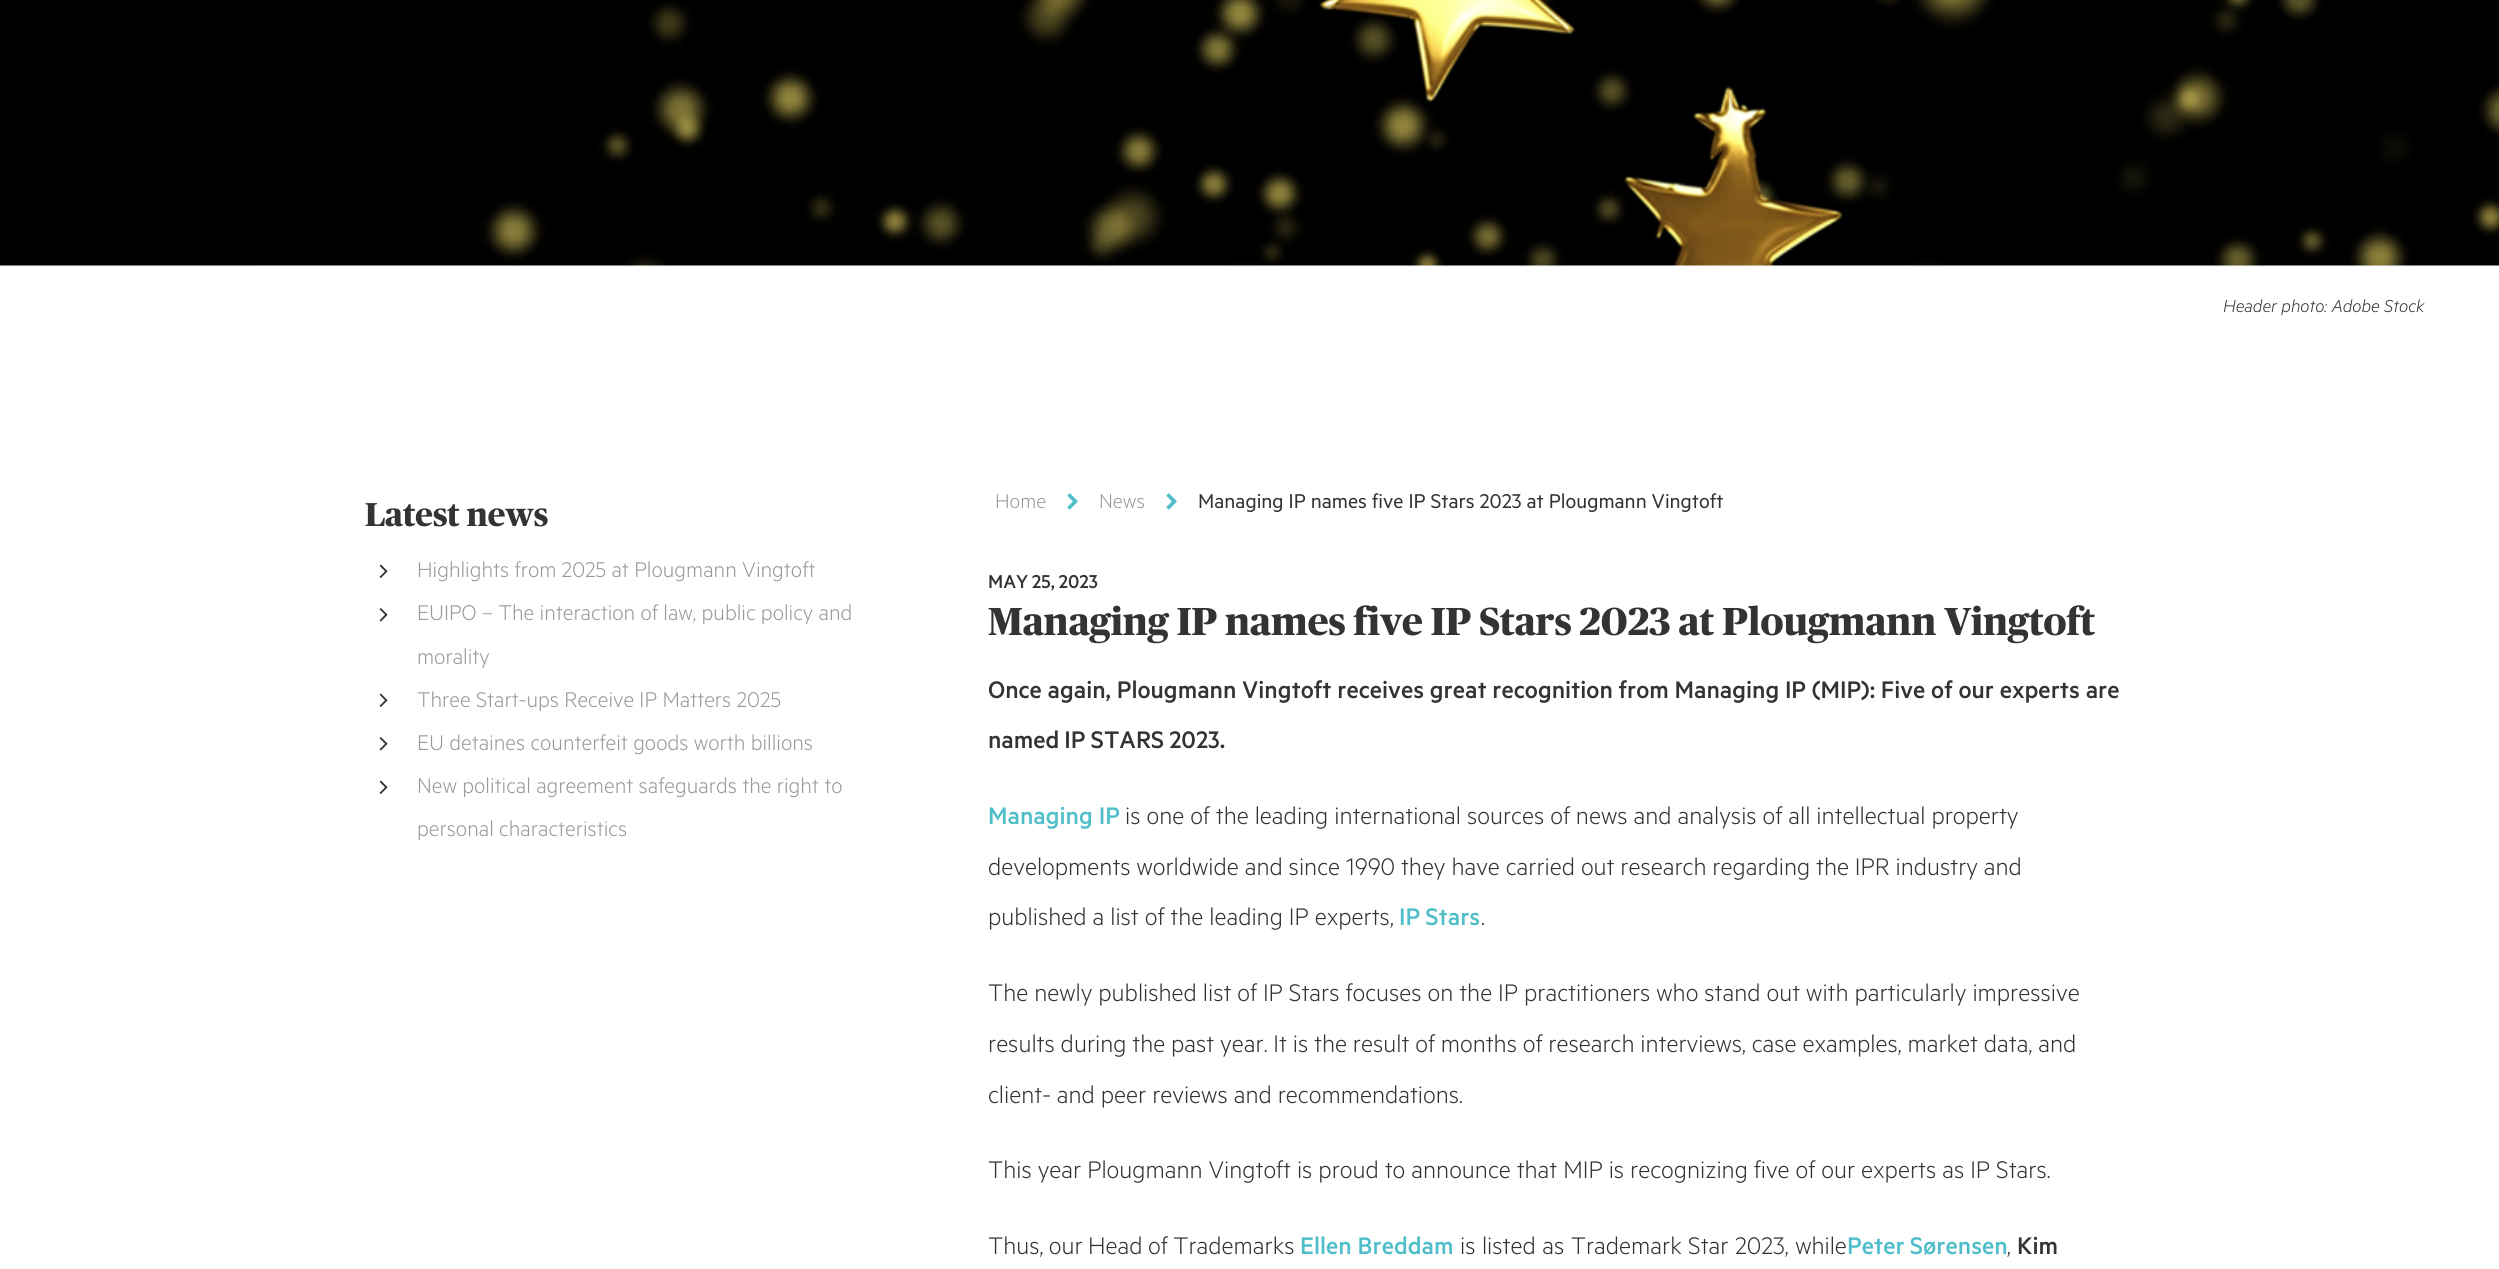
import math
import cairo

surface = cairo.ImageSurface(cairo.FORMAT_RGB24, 2499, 1269)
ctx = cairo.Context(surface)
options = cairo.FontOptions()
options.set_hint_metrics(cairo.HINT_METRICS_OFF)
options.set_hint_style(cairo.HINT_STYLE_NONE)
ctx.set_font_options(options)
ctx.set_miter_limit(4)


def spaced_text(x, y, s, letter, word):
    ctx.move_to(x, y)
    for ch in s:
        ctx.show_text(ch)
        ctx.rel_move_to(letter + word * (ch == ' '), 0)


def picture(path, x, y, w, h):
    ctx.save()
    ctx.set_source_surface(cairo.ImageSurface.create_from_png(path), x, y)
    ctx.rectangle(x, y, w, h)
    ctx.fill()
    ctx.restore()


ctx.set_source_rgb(1, 1, 1)
ctx.paint()
picture("img1.png", 0, 0, 2499, 266)
ctx.select_font_face("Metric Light", cairo.FONT_SLANT_ITALIC)
ctx.set_font_size(19.5)
ctx.set_source_rgb(0.2, 0.2, 0.2)
ctx.move_to(2223, 312)
ctx.show_text("Header photo: Adobe Stock")
ctx.select_font_face("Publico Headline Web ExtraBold")
ctx.set_font_size(33)
ctx.move_to(365, 526)
ctx.show_text("Latest news")
picture("img2.png", 379, 564, 9, 14)
ctx.select_font_face("Metric Light")
ctx.set_font_size(24)
ctx.set_source_rgb(0.6, 0.6, 0.6)
ctx.move_to(417, 577)
ctx.show_text("Highlights from 2025 at Plougmann Vingtoft")
picture("img3.png", 379, 608, 9, 14)
ctx.move_to(417, 620)
ctx.show_text("EUIPO – The interaction of law, public policy and")
ctx.move_to(417, 664)
ctx.show_text("morality")
picture("img2.png", 379, 693, 9, 14)
ctx.move_to(417, 707)
ctx.show_text("Three Start-ups Receive IP Matters 2025")
picture("img3.png", 379, 737, 9, 14)
ctx.move_to(417, 750)
ctx.show_text("EU detaines counterfeit goods worth billions")
picture("img2.png", 379, 780, 9, 14)
ctx.move_to(417, 793)
ctx.show_text("New political agreement safeguards the right to")
ctx.move_to(417, 836)
ctx.show_text("personal characteristics")
ctx.set_font_size(22.5)
ctx.move_to(995, 508)
ctx.show_text("Home")
picture("img4.png", 1067, 493, 11, 17)
ctx.move_to(1099, 508)
ctx.show_text("News")
picture("img4.png", 1166, 493, 11, 17)
ctx.select_font_face("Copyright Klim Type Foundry")
ctx.set_source_rgb(0.2, 0.2, 0.2)
ctx.move_to(1198, 508)
ctx.show_text("Managing IP names five IP Stars 2023 at Plougmann Vingtoft")
ctx.select_font_face("Metric Medium")
ctx.set_font_size(21)
spaced_text(988, 588, "MAY 25, 2023", 0, -1)
ctx.select_font_face("Publico Headline Web ExtraBold")
ctx.set_font_size(39)
spaced_text(988, 635, "Managing IP names five IP Stars 2023 at Plougmann Vingtoft", 0, -0.4)
ctx.select_font_face("Metric Medium")
ctx.set_font_size(27)
spaced_text(988, 698, "Once again, Plougmann Vingtoft receives great recognition from Managing IP (MIP): Five of our experts are", 0, -0.25)
spaced_text(988, 748, "named IP STARS 2023.", 0, -1)
ctx.set_source_rgb(0.314, 0.745, 0.788)
ctx.move_to(988, 824)
ctx.show_text("Managing IP")
ctx.select_font_face("Metric Light")
ctx.set_source_rgb(0.2, 0.2, 0.2)
ctx.move_to(1125, 824)
ctx.show_text("is one of the leading international sources of news and analysis of all intellectual property")
spaced_text(988, 875, "developments worldwide and since 1990 they have carried out research regarding the IPR industry and", 0, -0.1)
ctx.move_to(988, 925)
ctx.show_text("published a list of the leading IP experts,")
ctx.select_font_face("Metric Medium")
ctx.set_source_rgb(0.314, 0.745, 0.788)
spaced_text(1399, 925, "IP Stars", 0, -1)
ctx.select_font_face("Metric Light")
ctx.set_source_rgb(0.2, 0.2, 0.2)
ctx.move_to(1481, 925)
ctx.show_text(".")
ctx.move_to(988, 1001)
ctx.show_text("The newly published list of IP Stars focuses on the IP practitioners who stand out with particularly impressive")
spaced_text(988, 1052, "results during the past year. It is the result of months of research interviews, case examples, market data, and", 0, -0.1)
ctx.move_to(988, 1103)
ctx.show_text("client- and peer reviews and recommendations.")
ctx.move_to(988, 1178)
ctx.show_text("This year Plougmann Vingtoft is proud to announce that MIP is recognizing five of our experts as IP Stars.")
spaced_text(988, 1254, "Thus, our Head of Trademarks", 0, -0.5)
ctx.select_font_face("Metric Medium")
ctx.set_source_rgb(0.314, 0.745, 0.788)
ctx.move_to(1300, 1254)
ctx.show_text("Ellen Breddam")
ctx.select_font_face("Metric Light")
ctx.set_source_rgb(0.2, 0.2, 0.2)
spaced_text(1460, 1254, "is listed as Trademark Star 2023, while", 0, 0.5)
ctx.select_font_face("Metric Medium")
ctx.set_source_rgb(0.314, 0.745, 0.788)
spaced_text(1847, 1254, "Peter Sørensen", 0, -1)
ctx.select_font_face("Metric Light")
ctx.set_source_rgb(0.2, 0.2, 0.2)
ctx.move_to(2007, 1254)
ctx.show_text(",")
ctx.select_font_face("Metric Medium")
ctx.move_to(2017, 1254)
ctx.show_text("Kim")
surface.write_to_png("page.png")
